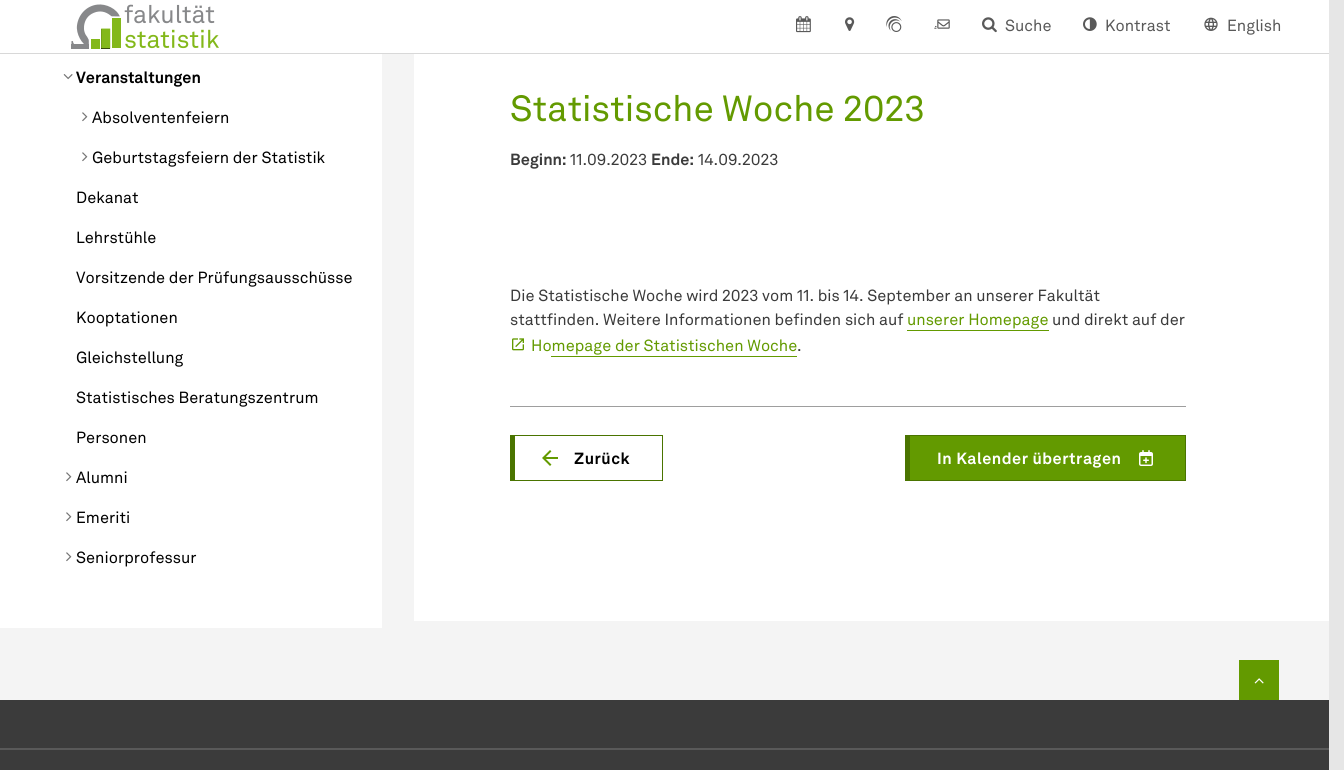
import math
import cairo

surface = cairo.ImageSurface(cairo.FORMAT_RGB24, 1344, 770)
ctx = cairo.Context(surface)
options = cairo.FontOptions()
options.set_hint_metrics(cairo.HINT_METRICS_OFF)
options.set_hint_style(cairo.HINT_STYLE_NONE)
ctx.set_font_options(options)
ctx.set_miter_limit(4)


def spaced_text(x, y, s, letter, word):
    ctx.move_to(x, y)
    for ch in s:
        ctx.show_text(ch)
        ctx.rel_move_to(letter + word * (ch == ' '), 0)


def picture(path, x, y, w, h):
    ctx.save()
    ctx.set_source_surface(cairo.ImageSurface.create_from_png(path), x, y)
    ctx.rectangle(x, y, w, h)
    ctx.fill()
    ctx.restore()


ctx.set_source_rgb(0.902, 0.902, 0.902)
ctx.paint()
ctx.set_source_rgb(1, 1, 1)
ctx.rectangle(0, 0, 1329, 53)
ctx.fill()
ctx.set_source_rgb(0.847, 0.847, 0.847)
ctx.rectangle(0, 53, 1329, 1)
ctx.fill()
picture("img1.png", 71, 4, 148, 45)
picture("img2.png", 796, 16, 15, 17)
picture("img3.png", 845, 17, 10, 14)
picture("img4.png", 886, 16, 16, 16)
picture("img5.png", 934, 19, 16, 10)
picture("img6.png", 982, 17, 15, 16)
ctx.select_font_face("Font")
ctx.set_font_size(16)
ctx.set_source_rgb(0.349, 0.349, 0.349)
ctx.move_to(1005, 31)
ctx.show_text("Suche")
picture("img7.png", 1083, 17, 14, 14)
ctx.move_to(1105, 31)
ctx.show_text("Kontrast")
picture("img8.png", 1204, 17, 14, 14)
ctx.move_to(1227, 31)
ctx.show_text("English")
ctx.set_source_rgb(0.957, 0.957, 0.957)
ctx.rectangle(0, 54, 1329, 646)
ctx.fill()
ctx.set_source_rgb(1, 1, 1)
ctx.rectangle(0, 54, 382, 574)
ctx.fill()
picture("img9.png", 63, 74, 10, 6)
ctx.select_font_face("Font", cairo.FONT_SLANT_NORMAL, cairo.FONT_WEIGHT_BOLD)
ctx.set_source_rgb(0, 0, 0)
ctx.move_to(76, 83)
ctx.show_text("Veranstaltungen")
picture("img10.png", 82, 112, 6, 10)
ctx.select_font_face("Font")
ctx.move_to(92, 123)
ctx.show_text("Absolventenfeiern")
picture("img10.png", 82, 152, 6, 10)
ctx.move_to(92, 163)
ctx.show_text("Geburtstagsfeiern der Statistik")
ctx.move_to(76, 203)
ctx.show_text("Dekanat")
ctx.move_to(76, 243)
ctx.show_text("Lehrstühle")
ctx.move_to(76, 283)
ctx.show_text("Vorsitzende der Prüfungsausschüsse")
ctx.move_to(76, 323)
ctx.show_text("Kooptationen")
ctx.move_to(76, 363)
ctx.show_text("Gleichstellung")
ctx.move_to(76, 403)
ctx.show_text("Statistisches Beratungszentrum")
ctx.move_to(76, 443)
ctx.show_text("Personen")
picture("img10.png", 66, 472, 6, 10)
ctx.move_to(76, 483)
ctx.show_text("Alumni")
picture("img10.png", 66, 512, 6, 10)
ctx.move_to(76, 523)
ctx.show_text("Emeriti")
picture("img10.png", 66, 552, 6, 10)
ctx.move_to(76, 563)
ctx.show_text("Seniorprofessur")
ctx.set_source_rgb(1, 1, 1)
ctx.rectangle(414, 54, 915, 567)
ctx.fill()
ctx.set_font_size(36)
ctx.set_source_rgb(0.388, 0.604, 0)
ctx.move_to(510, 121)
ctx.show_text("Statistische Woche 2023")
ctx.select_font_face("Font", cairo.FONT_SLANT_NORMAL, cairo.FONT_WEIGHT_BOLD)
ctx.set_font_size(16)
ctx.set_source_rgb(0.231, 0.231, 0.231)
ctx.move_to(510, 165)
ctx.show_text("Beginn:")
ctx.select_font_face("Font")
ctx.move_to(570, 165)
ctx.show_text("11.09.2023")
ctx.select_font_face("Font", cairo.FONT_SLANT_NORMAL, cairo.FONT_WEIGHT_BOLD)
ctx.move_to(651, 165)
ctx.show_text("Ende:")
ctx.select_font_face("Font")
ctx.move_to(698, 165)
ctx.show_text("14.09.2023")
ctx.move_to(510, 301)
ctx.show_text("Die Statistische Woche wird 2023 vom 11. bis 14. September an unserer Fakultät")
ctx.move_to(510, 325)
ctx.show_text("stattfinden. Weitere Informationen befinden sich auf")
ctx.set_source_rgb(0.388, 0.604, 0)
ctx.move_to(907, 325)
ctx.show_text("unserer Homepage")
ctx.rectangle(907, 330, 142, 1)
ctx.fill()
ctx.set_source_rgb(0.231, 0.231, 0.231)
ctx.move_to(1052, 325)
ctx.show_text("und direkt auf der")
picture("img11.png", 512, 338, 12, 13)
ctx.set_source_rgb(0.388, 0.604, 0)
ctx.move_to(531, 351)
ctx.show_text("Homepage der Statistischen Woche")
ctx.rectangle(551, 356, 246, 1)
ctx.fill()
ctx.set_source_rgb(0.231, 0.231, 0.231)
ctx.move_to(797, 351)
ctx.show_text(".")
ctx.set_source_rgb(0.62, 0.62, 0.62)
ctx.rectangle(510, 406, 676, 1)
ctx.fill()
ctx.set_source_rgb(0.29, 0.455, 0)
ctx.rectangle(510, 436, 5, 44)
ctx.fill()
ctx.rectangle(510, 435, 153, 1)
ctx.fill()
ctx.rectangle(662, 435, 1, 46)
ctx.fill()
ctx.rectangle(510, 480, 153, 1)
ctx.fill()
picture("img12.png", 542, 450, 16, 16)
ctx.select_font_face("Font", cairo.FONT_SLANT_NORMAL, cairo.FONT_WEIGHT_BOLD)
ctx.set_source_rgb(0, 0, 0)
spaced_text(574, 464, "Zurück", 0.5, 0)
ctx.set_source_rgb(0.388, 0.604, 0)
ctx.rectangle(910, 436, 275, 44)
ctx.fill()
ctx.set_source_rgb(0.29, 0.455, 0)
ctx.rectangle(1185, 435, 1, 46)
ctx.fill()
ctx.rectangle(905, 436, 5, 44)
ctx.fill()
ctx.rectangle(905, 435, 281, 1)
ctx.fill()
ctx.rectangle(905, 480, 281, 1)
ctx.fill()
ctx.set_source_rgb(1, 1, 1)
spaced_text(937, 464, "In Kalender übertragen", 0.5, 0)
picture("img13.png", 1139, 450, 14, 16)
ctx.set_source_rgb(0.388, 0.604, 0)
ctx.rectangle(1239, 660, 40, 40)
ctx.fill()
picture("img14.png", 1254, 678, 10, 6)
ctx.set_source_rgb(0.231, 0.231, 0.231)
ctx.rectangle(0, 700, 1329, 70)
ctx.fill()
ctx.set_source_rgb(0.349, 0.349, 0.349)
ctx.rectangle(0, 748, 1329, 2)
ctx.fill()
surface.write_to_png("page.png")
